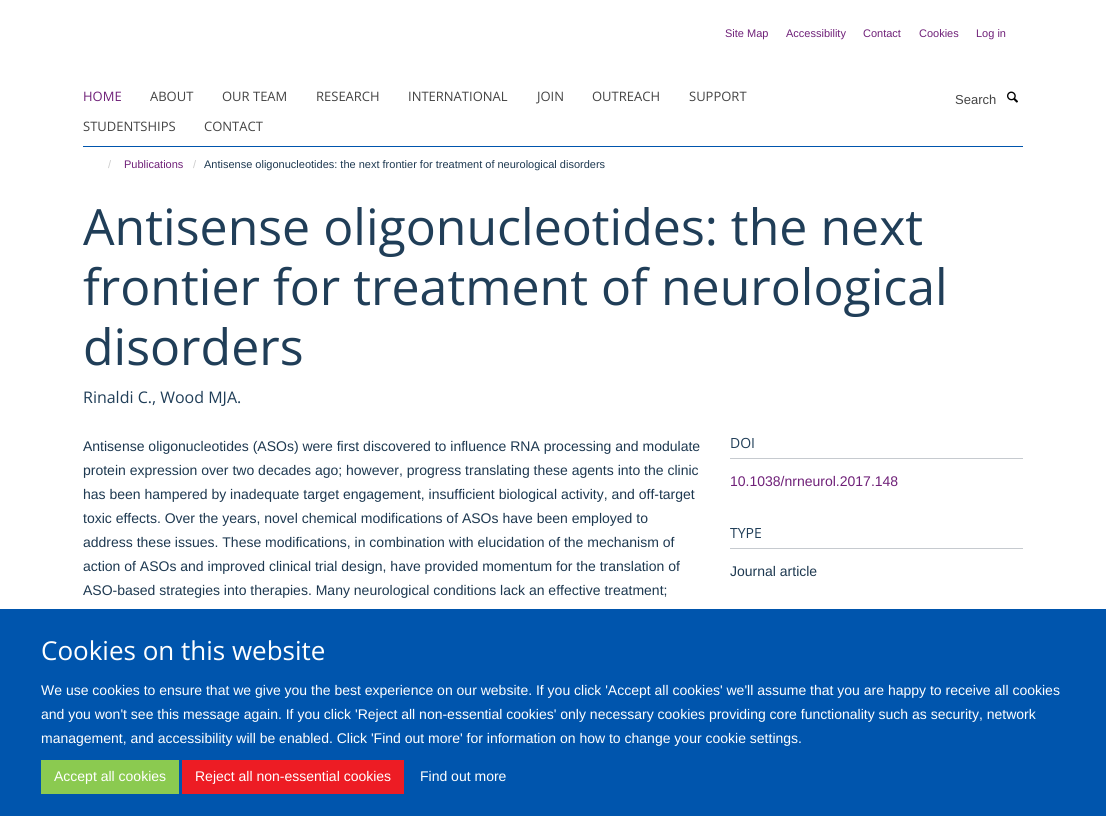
import math
import cairo

surface = cairo.ImageSurface(cairo.FORMAT_RGB24, 1106, 816)
ctx = cairo.Context(surface)
options = cairo.FontOptions()
options.set_hint_metrics(cairo.HINT_METRICS_OFF)
options.set_hint_style(cairo.HINT_STYLE_NONE)
ctx.set_font_options(options)
ctx.set_miter_limit(4)


def picture(path, x, y, w, h):
    ctx.save()
    ctx.set_source_surface(cairo.ImageSurface.create_from_png(path), x, y)
    ctx.rectangle(x, y, w, h)
    ctx.fill()
    ctx.restore()


ctx.set_source_rgb(1, 1, 1)
ctx.paint()
ctx.select_font_face("Liberation Sans")
ctx.set_font_size(11)
ctx.set_source_rgb(0.435, 0.125, 0.471)
ctx.move_to(725, 37)
ctx.show_text("Site Map")
ctx.move_to(786, 37)
ctx.show_text("Accessibility")
ctx.move_to(863, 37)
ctx.show_text("Contact")
ctx.move_to(919, 37)
ctx.show_text("Cookies")
ctx.move_to(976, 37)
ctx.show_text("Log in")
ctx.set_source_rgb(0, 0.333, 0.678)
ctx.rectangle(83, 146, 940, 1)
ctx.fill()
ctx.select_font_face("Open Sans")
ctx.set_font_size(13)
ctx.set_source_rgb(0.435, 0.125, 0.471)
ctx.move_to(83, 101)
ctx.show_text("HOME")
ctx.set_source_rgb(0.267, 0.267, 0.267)
ctx.move_to(150, 101)
ctx.show_text("ABOUT")
ctx.move_to(222, 101)
ctx.show_text("OUR TEAM")
ctx.move_to(316, 101)
ctx.show_text("RESEARCH")
ctx.move_to(408, 101)
ctx.show_text("INTERNATIONAL")
ctx.move_to(537, 101)
ctx.show_text("JOIN")
ctx.move_to(592, 101)
ctx.show_text("OUTREACH")
ctx.move_to(689, 101)
ctx.show_text("SUPPORT")
ctx.move_to(83, 131)
ctx.show_text("STUDENTSHIPS")
ctx.move_to(204, 131)
ctx.show_text("CONTACT")
ctx.select_font_face("Liberation Sans")
ctx.move_to(955, 104)
ctx.show_text("Search")
picture("img1.png", 1007, 91, 11, 12)
ctx.set_font_size(11)
ctx.set_source_rgb(0.8, 0.8, 0.8)
ctx.move_to(108, 168)
ctx.show_text("/")
ctx.set_source_rgb(0.435, 0.125, 0.471)
ctx.move_to(124, 168)
ctx.show_text("Publications")
ctx.set_source_rgb(0.8, 0.8, 0.8)
ctx.move_to(193, 168)
ctx.show_text("/")
ctx.set_source_rgb(0.114, 0.22, 0.314)
ctx.move_to(204, 168)
ctx.show_text("Antisense oligonucleotides: the next frontier for treatment of neurological disorders")
ctx.select_font_face("Open Sans")
ctx.set_font_size(50)
ctx.set_source_rgb(0.125, 0.243, 0.345)
ctx.move_to(83, 245)
ctx.show_text("Antisense oligonucleotides: the next")
ctx.move_to(83, 305)
ctx.show_text("frontier for treatment of neurological")
ctx.move_to(83, 365)
ctx.show_text("disorders")
ctx.set_font_size(16)
ctx.move_to(83, 403)
ctx.show_text("Rinaldi C., Wood MJA.")
ctx.select_font_face("Liberation Sans")
ctx.set_font_size(14)
ctx.set_source_rgb(0.114, 0.22, 0.314)
ctx.move_to(83, 451)
ctx.show_text("Antisense oligonucleotides (ASOs) were first discovered to influence RNA processing and modulate")
ctx.move_to(83, 475)
ctx.show_text("protein expression over two decades ago; however, progress translating these agents into the clinic")
ctx.move_to(83, 499)
ctx.show_text("has been hampered by inadequate target engagement, insufficient biological activity, and off-target")
ctx.move_to(83, 523)
ctx.show_text("toxic effects. Over the years, novel chemical modifications of ASOs have been employed to")
ctx.move_to(83, 547)
ctx.show_text("address these issues. These modifications, in combination with elucidation of the mechanism of")
ctx.move_to(83, 571)
ctx.show_text("action of ASOs and improved clinical trial design, have provided momentum for the translation of")
ctx.move_to(83, 595)
ctx.show_text("ASO-based strategies into therapies. Many neurological conditions lack an effective treatment;")
ctx.set_source_rgb(0.776, 0.792, 0.812)
ctx.rectangle(730, 458, 293, 1)
ctx.fill()
ctx.select_font_face("Open Sans")
ctx.set_source_rgb(0.125, 0.243, 0.345)
ctx.move_to(730, 448)
ctx.show_text("DOI")
ctx.select_font_face("Liberation Sans")
ctx.set_source_rgb(0.435, 0.125, 0.471)
ctx.move_to(730, 486)
ctx.show_text("10.1038/nrneurol.2017.148")
ctx.set_source_rgb(0.776, 0.792, 0.812)
ctx.rectangle(730, 548, 293, 1)
ctx.fill()
ctx.select_font_face("Open Sans")
ctx.set_source_rgb(0.125, 0.243, 0.345)
ctx.move_to(730, 538)
ctx.show_text("TYPE")
ctx.select_font_face("Liberation Sans")
ctx.set_source_rgb(0.114, 0.22, 0.314)
ctx.move_to(730, 576)
ctx.show_text("Journal article")
ctx.set_source_rgb(0, 0.333, 0.678)
ctx.rectangle(0, 609, 1106, 207)
ctx.fill()
ctx.select_font_face("Open Sans")
ctx.set_font_size(26)
ctx.set_source_rgb(1, 1, 1)
ctx.move_to(41, 660)
ctx.show_text("Cookies on this website")
ctx.select_font_face("Liberation Sans")
ctx.set_font_size(14)
ctx.move_to(41, 695)
ctx.show_text("We use cookies to ensure that we give you the best experience on our website. If you click 'Accept all cookies' we'll assume that you are happy to receive all cookies")
ctx.move_to(41, 719)
ctx.show_text("and you won't see this message again. If you click 'Reject all non-essential cookies' only necessary cookies providing core functionality such as security, network")
ctx.move_to(41, 743)
ctx.show_text("management, and accessibility will be enabled. Click 'Find out more' for information on how to change your cookie settings.")
ctx.set_source_rgb(0.545, 0.792, 0.314)
ctx.rectangle(41, 760, 138, 34)
ctx.fill()
ctx.set_source_rgb(1, 1, 1)
ctx.move_to(54, 781)
ctx.show_text("Accept all cookies")
ctx.set_source_rgb(0.929, 0.11, 0.141)
ctx.rectangle(182, 760, 222, 34)
ctx.fill()
ctx.set_source_rgb(1, 1, 1)
ctx.move_to(195, 781)
ctx.show_text("Reject all non-essential cookies")
ctx.move_to(420, 781)
ctx.show_text("Find out more")
surface.write_to_png("page.png")
